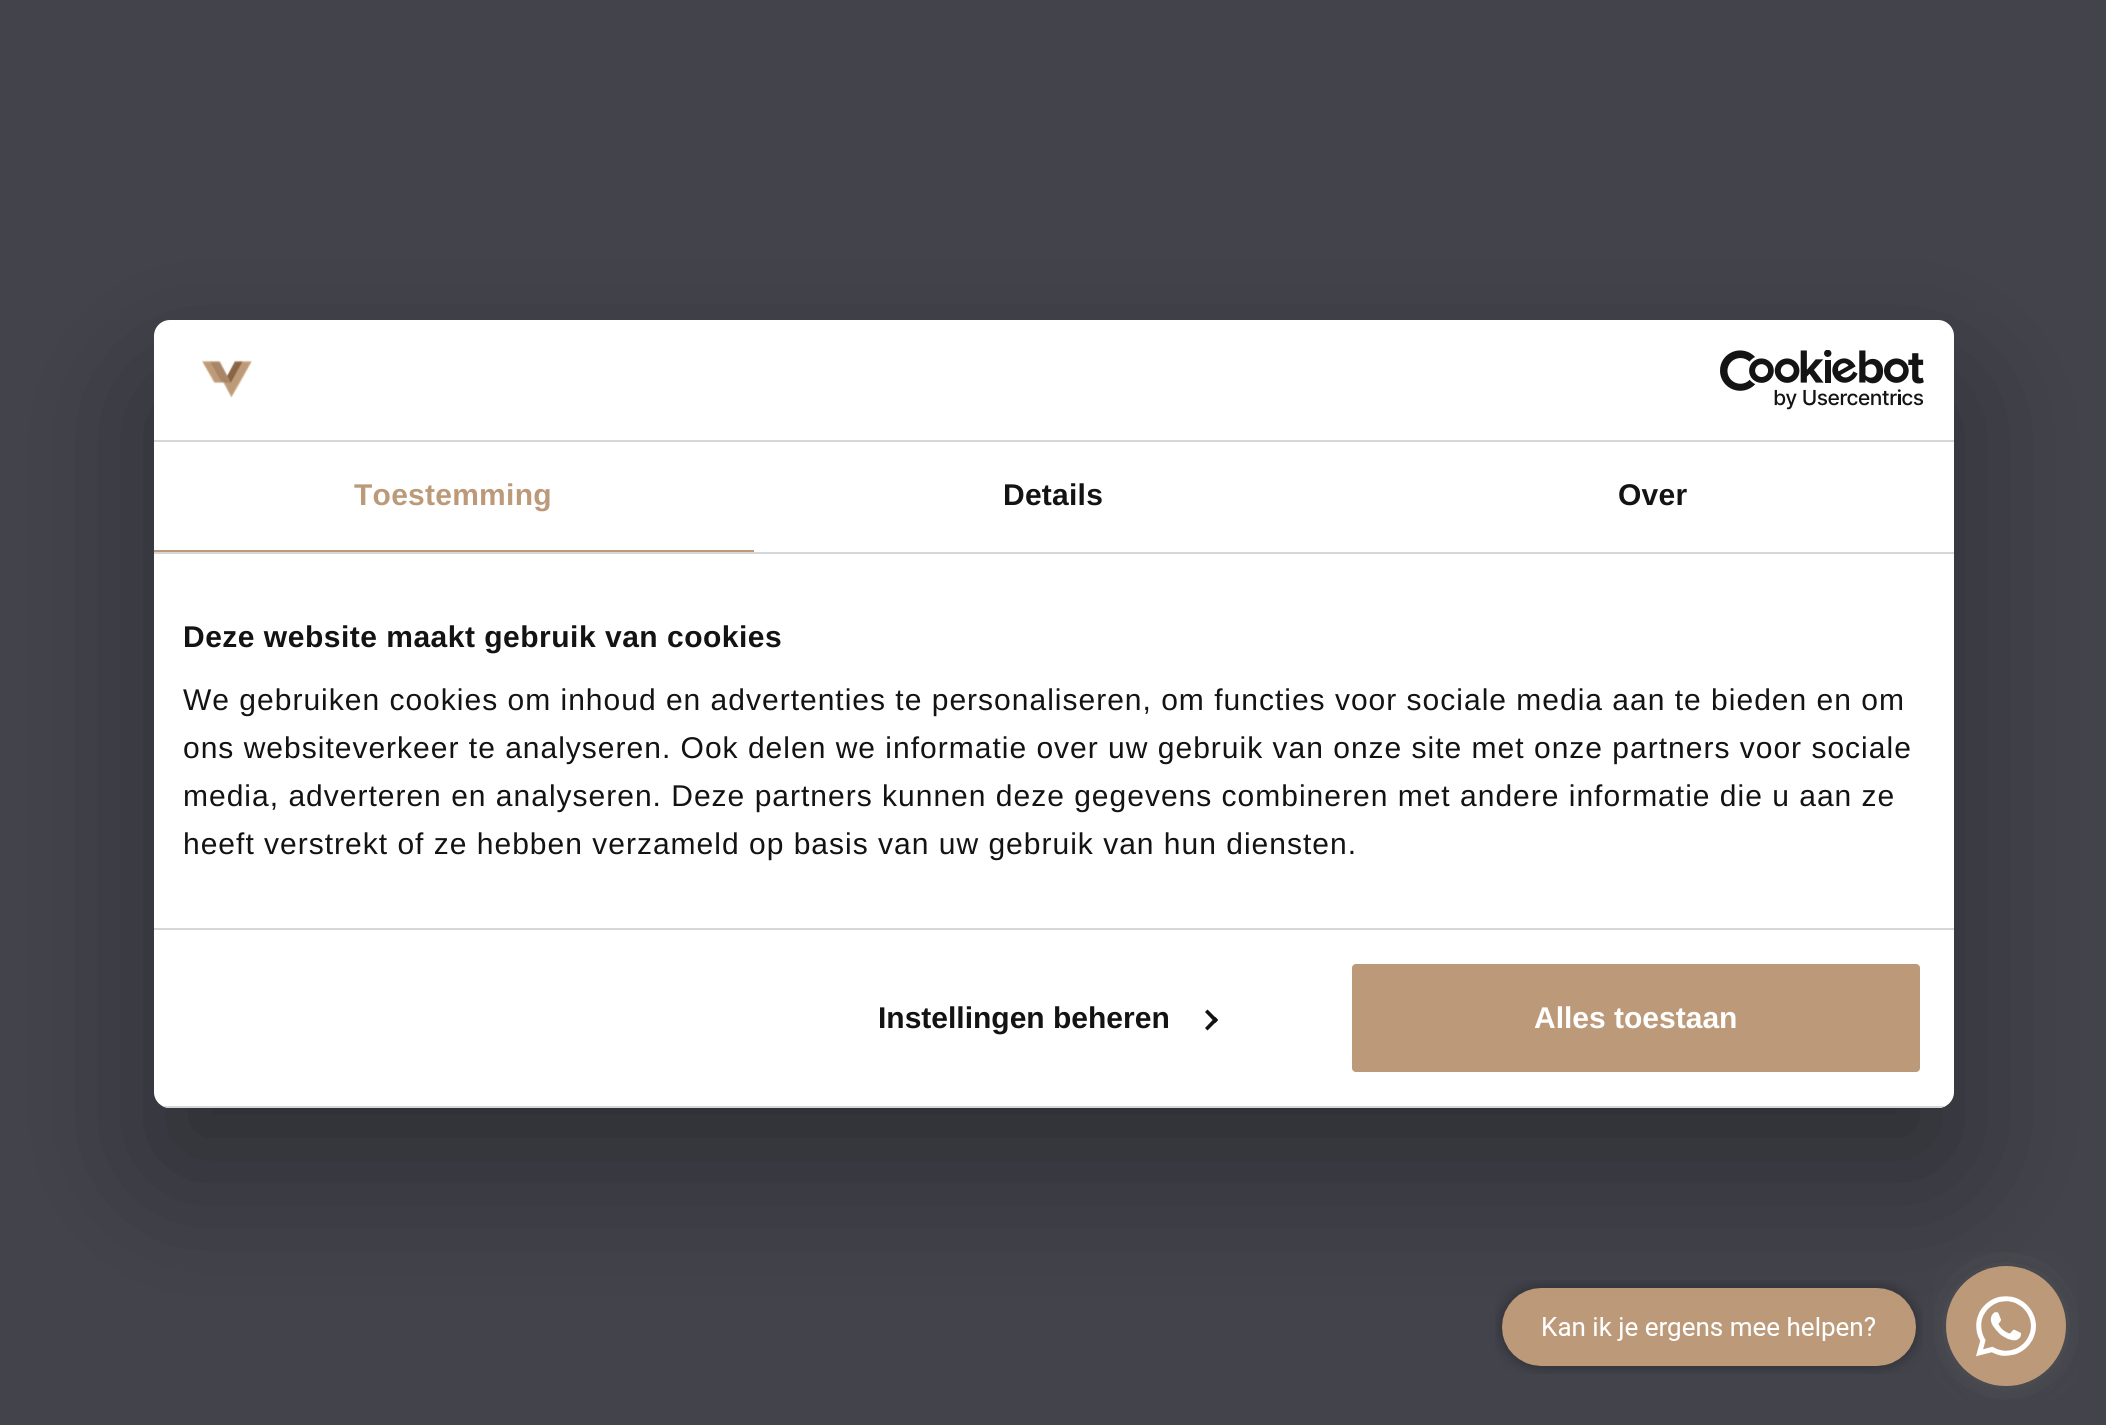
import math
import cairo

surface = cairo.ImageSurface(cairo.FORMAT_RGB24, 2106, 1425)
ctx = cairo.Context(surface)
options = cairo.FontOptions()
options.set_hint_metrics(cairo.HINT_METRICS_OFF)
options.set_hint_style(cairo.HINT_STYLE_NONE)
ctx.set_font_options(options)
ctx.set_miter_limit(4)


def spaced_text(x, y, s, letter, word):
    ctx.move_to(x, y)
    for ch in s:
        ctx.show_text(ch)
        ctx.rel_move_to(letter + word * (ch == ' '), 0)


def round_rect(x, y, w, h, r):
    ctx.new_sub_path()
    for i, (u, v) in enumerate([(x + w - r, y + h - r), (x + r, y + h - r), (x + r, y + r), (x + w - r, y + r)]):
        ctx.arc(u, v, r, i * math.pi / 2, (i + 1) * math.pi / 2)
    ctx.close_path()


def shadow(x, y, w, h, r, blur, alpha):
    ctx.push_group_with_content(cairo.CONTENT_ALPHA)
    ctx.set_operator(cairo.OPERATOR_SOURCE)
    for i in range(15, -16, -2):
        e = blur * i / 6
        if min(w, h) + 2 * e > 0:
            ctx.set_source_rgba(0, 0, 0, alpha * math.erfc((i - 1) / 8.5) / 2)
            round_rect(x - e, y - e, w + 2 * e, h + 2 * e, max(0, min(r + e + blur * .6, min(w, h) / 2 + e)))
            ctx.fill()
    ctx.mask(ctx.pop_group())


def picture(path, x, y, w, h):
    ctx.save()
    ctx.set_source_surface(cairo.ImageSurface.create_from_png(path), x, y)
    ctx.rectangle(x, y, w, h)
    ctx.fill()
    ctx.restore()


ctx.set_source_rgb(0.259, 0.263, 0.294)
ctx.paint()
picture("img3.png", 1495, 1280, 428, 94)
picture("img4.png", 1934, 1252, 144, 148)
ctx.set_source_rgb(0, 0, 0)
shadow(154, 384, 1800, 788, 16, 68, 0.3)
ctx.set_source_rgb(1, 1, 1)
round_rect(154, 320, 1800, 788, 16)
ctx.fill()
ctx.set_source_rgb(0.839, 0.839, 0.839)
ctx.rectangle(154, 440, 1800, 2)
ctx.fill()
picture("img1.png", 202, 360, 50, 38)
picture("img2.png", 1720, 350, 204, 60)
ctx.rectangle(154, 552, 1800, 2)
ctx.fill()
ctx.set_source_rgb(0.737, 0.604, 0.475)
ctx.rectangle(154, 550, 600, 2)
ctx.fill()
ctx.select_font_face("Liberation Sans", cairo.FONT_SLANT_NORMAL, cairo.FONT_WEIGHT_BOLD)
ctx.set_font_size(30)
spaced_text(354, 505, "Toestemming", 0.25, 0)
ctx.set_source_rgb(0.078, 0.078, 0.078)
spaced_text(1003, 505, "Details", 0.25, 0)
spaced_text(1618, 505, "Over", 0.25, 0)
ctx.set_source_rgb(0.839, 0.839, 0.839)
ctx.rectangle(154, 928, 1800, 2)
ctx.fill()
ctx.set_source_rgb(0.078, 0.078, 0.078)
spaced_text(183, 647, "Deze website maakt gebruik van cookies", 0.5, 0)
ctx.select_font_face("Liberation Sans")
spaced_text(183, 710, "We gebruiken cookies om inhoud en advertenties te personaliseren, om functies voor sociale media aan te bieden en om", 1, 0)
spaced_text(183, 758, "ons websiteverkeer te analyseren. Ook delen we informatie over uw gebruik van onze site met onze partners voor sociale", 1, 0)
spaced_text(183, 806, "media, adverteren en analyseren. Deze partners kunnen deze gegevens combineren met andere informatie die u aan ze", 1, 0)
spaced_text(183, 854, "heeft verstrekt of ze hebben verzameld op basis van uw gebruik van hun diensten.", 1, 0)
ctx.save()
round_rect(154, 320, 1800, 788, 16)
ctx.clip()
ctx.set_source_rgb(0.839, 0.839, 0.839)
ctx.rectangle(154, 1106, 1800, 2)
ctx.fill()
ctx.restore()
ctx.select_font_face("Liberation Sans", cairo.FONT_SLANT_NORMAL, cairo.FONT_WEIGHT_BOLD)
ctx.move_to(878, 1028)
ctx.show_text("Instellingen beheren")
ctx.new_path()
ctx.move_to(1207.5, 1009.5)
ctx.line_to(1218, 1020)
ctx.line_to(1215.5, 1023)
ctx.line_to(1205, 1012)
ctx.close_path()
ctx.fill()
ctx.new_path()
ctx.move_to(1215.5, 1017)
ctx.line_to(1218, 1020)
ctx.line_to(1207.5, 1030.5)
ctx.line_to(1205, 1028)
ctx.close_path()
ctx.fill()
ctx.set_source_rgb(0.737, 0.604, 0.475)
round_rect(1350, 962, 572, 112, 6)
ctx.fill_preserve()
ctx.set_source_rgb(1, 1, 1)
ctx.set_line_width(4)
ctx.stroke()
ctx.move_to(1534, 1028)
ctx.show_text("Alles toestaan")
surface.write_to_png("page.png")
